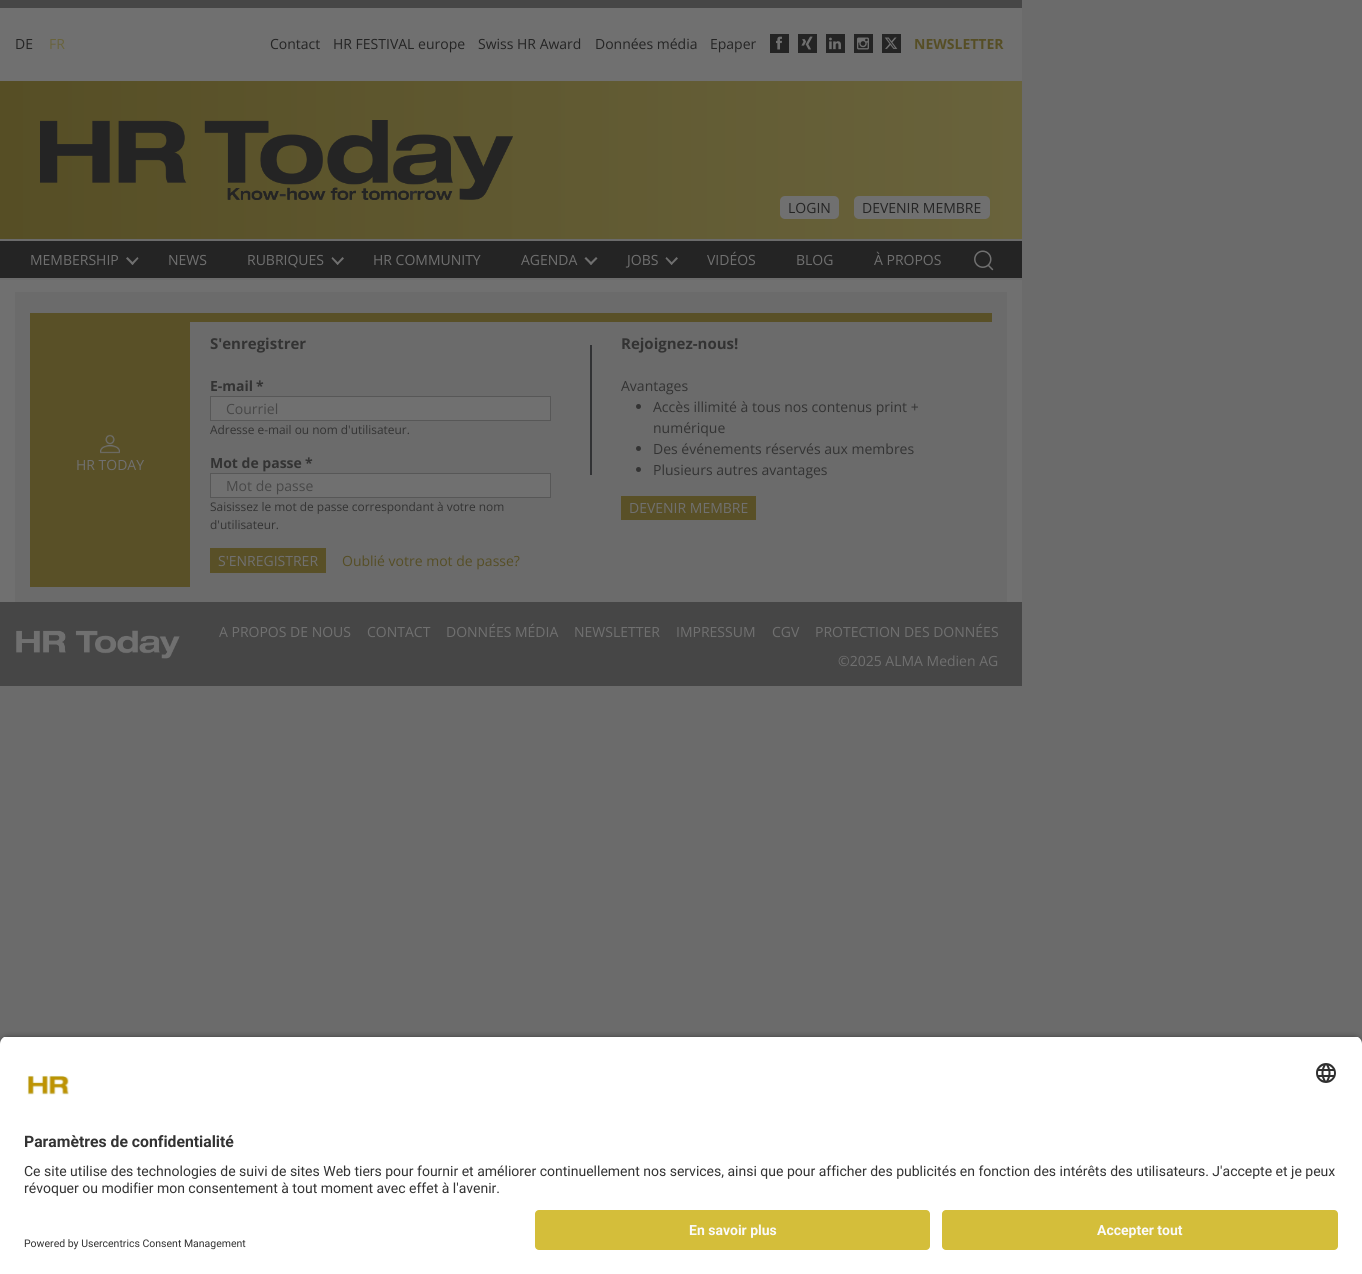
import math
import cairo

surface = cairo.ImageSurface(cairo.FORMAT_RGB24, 1362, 1274)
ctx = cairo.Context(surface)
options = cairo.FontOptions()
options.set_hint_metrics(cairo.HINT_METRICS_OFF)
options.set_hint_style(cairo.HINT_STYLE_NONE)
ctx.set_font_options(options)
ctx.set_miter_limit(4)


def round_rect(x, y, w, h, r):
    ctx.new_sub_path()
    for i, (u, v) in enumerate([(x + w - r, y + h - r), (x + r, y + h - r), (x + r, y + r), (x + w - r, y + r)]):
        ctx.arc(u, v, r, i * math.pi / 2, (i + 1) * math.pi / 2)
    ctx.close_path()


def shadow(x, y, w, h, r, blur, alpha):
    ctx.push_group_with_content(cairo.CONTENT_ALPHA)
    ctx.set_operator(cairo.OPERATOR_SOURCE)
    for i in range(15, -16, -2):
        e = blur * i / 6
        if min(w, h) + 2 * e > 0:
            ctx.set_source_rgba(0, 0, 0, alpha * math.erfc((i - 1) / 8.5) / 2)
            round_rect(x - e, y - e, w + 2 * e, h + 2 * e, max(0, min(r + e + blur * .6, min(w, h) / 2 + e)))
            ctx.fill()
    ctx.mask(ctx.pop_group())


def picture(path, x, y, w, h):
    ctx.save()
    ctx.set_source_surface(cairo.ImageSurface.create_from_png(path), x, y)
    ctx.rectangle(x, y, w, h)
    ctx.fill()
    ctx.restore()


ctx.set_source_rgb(0.42, 0.42, 0.42)
ctx.paint()
ctx.set_source_rgb(0.439, 0.439, 0.439)
ctx.rectangle(0, 8, 1022, 73)
ctx.fill()
ctx.set_source_rgb(0.275, 0.275, 0.275)
ctx.rectangle(0, 0, 1022, 8)
ctx.fill()
ctx.select_font_face("Open Sans")
ctx.set_font_size(14)
ctx.set_source_rgb(0.141, 0.141, 0.141)
ctx.move_to(15, 49)
ctx.show_text("DE")
ctx.set_source_rgb(0.412, 0.388, 0.235)
ctx.move_to(49, 49)
ctx.show_text("FR")
ctx.set_source_rgb(0.141, 0.141, 0.141)
ctx.move_to(270, 49)
ctx.show_text("Contact")
ctx.move_to(333, 49)
ctx.show_text("HR FESTIVAL europe")
ctx.move_to(478, 49)
ctx.show_text("Swiss HR Award")
ctx.move_to(595, 49)
ctx.show_text("Données média")
ctx.move_to(710, 49)
ctx.show_text("Epaper")
ctx.rectangle(770, 34, 19, 19)
ctx.fill()
picture("img1.png", 776, 36, 6, 14)
ctx.rectangle(798, 34, 19, 19)
ctx.fill()
picture("img2.png", 801, 36, 12, 14)
ctx.rectangle(826, 34, 19, 19)
ctx.fill()
picture("img3.png", 829, 37, 12, 13)
ctx.rectangle(854, 34, 19, 19)
ctx.fill()
picture("img4.png", 857, 37, 12, 13)
ctx.rectangle(882, 34, 19, 19)
ctx.fill()
picture("img5.png", 884, 37, 14, 12)
ctx.select_font_face("Open Sans", cairo.FONT_SLANT_NORMAL, cairo.FONT_WEIGHT_BOLD)
ctx.set_source_rgb(0.337, 0.306, 0.145)
ctx.move_to(914, 49)
ctx.show_text("NEWSLETTER")
gradient = cairo.LinearGradient(0, 160, 1022, 160)
gradient.add_color_stop_rgba(0, 0.337, 0.306, 0.145, 1)
gradient.add_color_stop_rgba(1, 0.412, 0.388, 0.235, 1)
ctx.set_source(gradient)
ctx.rectangle(0, 81, 1022, 158)
ctx.fill()
picture("img6.png", 40, 120, 473, 80)
ctx.set_source_rgb(0.439, 0.439, 0.439)
round_rect(780, 196, 59, 23, 5)
ctx.fill()
ctx.select_font_face("Open Sans")
ctx.set_source_rgb(0.141, 0.141, 0.141)
ctx.move_to(788, 213)
ctx.show_text("LOGIN")
ctx.set_source_rgb(0.439, 0.439, 0.439)
round_rect(854, 196, 136, 23, 5)
ctx.fill()
ctx.set_source_rgb(0.141, 0.141, 0.141)
ctx.move_to(862, 213)
ctx.show_text("DEVENIR MEMBRE")
ctx.rectangle(0, 241, 1022, 37)
ctx.fill()
ctx.set_source_rgb(0.439, 0.439, 0.439)
ctx.move_to(30, 265)
ctx.show_text("MEMBERSHIP")
ctx.new_path()
ctx.move_to(137.5, 257)
ctx.line_to(138.5, 258.5)
ctx.line_to(132.5, 265)
ctx.line_to(131, 263.5)
ctx.close_path()
ctx.fill()
ctx.new_path()
ctx.move_to(127.5, 257)
ctx.line_to(134, 263.5)
ctx.line_to(132.5, 265)
ctx.line_to(126, 258.5)
ctx.close_path()
ctx.fill()
ctx.move_to(168, 265)
ctx.show_text("NEWS")
ctx.move_to(247, 265)
ctx.show_text("RUBRIQUES")
ctx.new_path()
ctx.move_to(342.5, 257)
ctx.line_to(344, 258.5)
ctx.line_to(337.5, 265)
ctx.line_to(336.5, 263.5)
ctx.close_path()
ctx.fill()
ctx.new_path()
ctx.move_to(332.5, 257)
ctx.line_to(339, 263.5)
ctx.line_to(337.5, 265)
ctx.line_to(331.5, 258.5)
ctx.close_path()
ctx.fill()
ctx.move_to(373, 265)
ctx.show_text("HR COMMUNITY")
ctx.move_to(521, 265)
ctx.show_text("AGENDA")
ctx.new_path()
ctx.move_to(596, 257)
ctx.line_to(597.5, 258.5)
ctx.line_to(591, 265)
ctx.line_to(589.5, 263.5)
ctx.close_path()
ctx.fill()
ctx.new_path()
ctx.move_to(586, 257)
ctx.line_to(592.5, 263.5)
ctx.line_to(591, 265)
ctx.line_to(584.5, 258.5)
ctx.close_path()
ctx.fill()
ctx.move_to(627, 265)
ctx.show_text("JOBS")
ctx.new_path()
ctx.move_to(676.5, 257)
ctx.line_to(678, 258.5)
ctx.line_to(671.5, 265)
ctx.line_to(670.5, 263.5)
ctx.close_path()
ctx.fill()
ctx.new_path()
ctx.move_to(666.5, 257)
ctx.line_to(673, 263.5)
ctx.line_to(671.5, 265)
ctx.line_to(665.5, 258.5)
ctx.close_path()
ctx.fill()
ctx.move_to(707, 265)
ctx.show_text("VIDÉOS")
ctx.move_to(796, 265)
ctx.show_text("BLOG")
ctx.move_to(874, 265)
ctx.show_text("À PROPOS")
picture("img7.png", 974, 250, 20, 21)
ctx.rectangle(0, 280, 1022, 322)
ctx.fill()
ctx.set_source_rgb(0.42, 0.42, 0.42)
ctx.rectangle(15, 292, 992, 310)
ctx.fill()
ctx.set_source_rgb(0.349, 0.314, 0.153)
ctx.rectangle(30, 313, 962, 9)
ctx.fill()
ctx.rectangle(30, 322, 160, 265)
ctx.fill()
picture("img8.png", 100, 434, 20, 20)
ctx.set_source_rgb(0.439, 0.439, 0.439)
ctx.move_to(76, 470)
ctx.show_text("HR TODAY")
ctx.select_font_face("Open Sans", cairo.FONT_SLANT_NORMAL, cairo.FONT_WEIGHT_BOLD)
ctx.set_font_size(15)
ctx.set_source_rgb(0.2, 0.2, 0.2)
ctx.move_to(210, 349)
ctx.show_text("S'enregistrer")
ctx.set_source_rgb(0.192, 0.196, 0.204)
ctx.rectangle(590, 345, 2, 130)
ctx.fill()
ctx.set_font_size(14)
ctx.set_source_rgb(0.2, 0.2, 0.2)
ctx.move_to(210, 391)
ctx.show_text("E-mail")
ctx.move_to(256, 391)
ctx.show_text("*")
ctx.set_source_rgb(0.439, 0.439, 0.439)
ctx.rectangle(210.5, 396.5, 340, 24)
ctx.fill_preserve()
ctx.set_source_rgb(0.341, 0.341, 0.341)
ctx.set_line_width(1)
ctx.stroke()
ctx.select_font_face("Open Sans")
ctx.set_source_rgb(0.278, 0.278, 0.278)
ctx.move_to(226, 414)
ctx.show_text("Courriel")
ctx.set_font_size(11.9)
ctx.set_source_rgb(0.2, 0.2, 0.2)
ctx.move_to(210, 434)
ctx.show_text("Adresse e-mail ou nom d'utilisateur.")
ctx.select_font_face("Open Sans", cairo.FONT_SLANT_NORMAL, cairo.FONT_WEIGHT_BOLD)
ctx.set_font_size(14)
ctx.move_to(210, 468)
ctx.show_text("Mot de passe")
ctx.move_to(305, 468)
ctx.show_text("*")
ctx.set_source_rgb(0.439, 0.439, 0.439)
ctx.rectangle(210.5, 473.5, 340, 24)
ctx.fill_preserve()
ctx.set_source_rgb(0.341, 0.341, 0.341)
ctx.stroke()
ctx.select_font_face("Open Sans")
ctx.set_source_rgb(0.278, 0.278, 0.278)
ctx.move_to(226, 491)
ctx.show_text("Mot de passe")
ctx.set_font_size(11.9)
ctx.set_source_rgb(0.2, 0.2, 0.2)
ctx.move_to(210, 511)
ctx.show_text("Saisissez le mot de passe correspondant à votre nom")
ctx.move_to(210, 529)
ctx.show_text("d'utilisateur.")
ctx.set_source_rgb(0.349, 0.314, 0.153)
ctx.rectangle(210, 548, 116, 25)
ctx.fill()
ctx.set_font_size(14)
ctx.set_source_rgb(0.439, 0.439, 0.439)
ctx.move_to(218, 566)
ctx.show_text("S'ENREGISTRER")
ctx.set_source_rgb(0.337, 0.306, 0.145)
ctx.move_to(342, 566)
ctx.show_text("Oublié votre mot de passe?")
ctx.select_font_face("Open Sans", cairo.FONT_SLANT_NORMAL, cairo.FONT_WEIGHT_BOLD)
ctx.set_font_size(15)
ctx.set_source_rgb(0.2, 0.2, 0.2)
ctx.move_to(621, 349)
ctx.show_text("Rejoignez-nous!")
ctx.select_font_face("Open Sans")
ctx.set_font_size(14)
ctx.move_to(621, 391)
ctx.show_text("Avantages")
ctx.new_path()
ctx.arc(638.5, 406.5, 2.5, 0, 2 * math.pi)
ctx.fill()
ctx.move_to(653, 412)
ctx.show_text("Accès illimité à tous nos contenus print +")
ctx.move_to(653, 433)
ctx.show_text("numérique")
ctx.new_path()
ctx.arc(638.5, 448.5, 2.5, 0, 2 * math.pi)
ctx.fill()
ctx.move_to(653, 454)
ctx.show_text("Des événements réservés aux membres")
ctx.new_path()
ctx.arc(638.5, 469.5, 2.5, 0, 2 * math.pi)
ctx.fill()
ctx.move_to(653, 475)
ctx.show_text("Plusieurs autres avantages")
ctx.set_source_rgb(0.349, 0.314, 0.153)
ctx.rectangle(621, 496, 135, 24)
ctx.fill()
ctx.set_source_rgb(0.439, 0.439, 0.439)
ctx.move_to(629, 513)
ctx.show_text("DEVENIR MEMBRE")
ctx.set_source_rgb(0.275, 0.275, 0.275)
ctx.rectangle(0, 602, 1022, 84)
ctx.fill()
picture("img9.png", 16, 630, 164, 29)
ctx.set_source_rgb(0.439, 0.439, 0.439)
ctx.move_to(219, 637)
ctx.show_text("A PROPOS DE NOUS")
ctx.move_to(367, 637)
ctx.show_text("CONTACT")
ctx.move_to(446, 637)
ctx.show_text("DONNÉES MÉDIA")
ctx.move_to(574, 637)
ctx.show_text("NEWSLETTER")
ctx.move_to(676, 637)
ctx.show_text("IMPRESSUM")
ctx.move_to(772, 637)
ctx.show_text("CGV")
ctx.move_to(815, 637)
ctx.show_text("PROTECTION DES DONNÉES")
ctx.move_to(838, 666)
ctx.show_text("©2025 ALMA Medien AG")
ctx.set_source_rgb(0, 0, 0)
shadow(0, 1039, 1362, 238, 8, 3.5, 0.8)
ctx.save()
ctx.new_path()
ctx.move_to(8, 1036)
ctx.line_to(1354, 1036)
ctx.curve_to(1358.5, 1036, 1362, 1039.5, 1362, 1044)
ctx.line_to(1362, 1202)
ctx.line_to(0, 1202)
ctx.line_to(0, 1044)
ctx.curve_to(0, 1039.5, 3.5, 1036, 8, 1036)
ctx.close_path()
ctx.clip()
ctx.set_source_rgb(1, 1, 1)
ctx.rectangle(0, 1037, 1362, 165)
ctx.fill()
ctx.restore()
picture("img10.png", 1316, 1063, 20, 20)
picture("img11.png", 27, 1075, 42, 20)
ctx.select_font_face("Roboto", cairo.FONT_SLANT_NORMAL, cairo.FONT_WEIGHT_BOLD)
ctx.set_font_size(15.75)
ctx.set_source_rgb(0.2, 0.2, 0.2)
ctx.move_to(24, 1147)
ctx.show_text("Paramètres de confidentialité")
ctx.select_font_face("Roboto")
ctx.set_font_size(14)
ctx.move_to(24, 1176)
ctx.show_text("Ce site utilise des technologies de suivi de sites Web tiers pour fournir et améliorer continuellement nos services, ainsi que pour afficher des publicités en fonction des intérêts des utilisateurs. J'accepte et je peux")
ctx.move_to(24, 1193)
ctx.show_text("révoquer ou modifier mon consentement à tout moment avec effet à l'avenir.")
ctx.set_source_rgb(1, 1, 1)
ctx.rectangle(0, 1202, 1362, 72)
ctx.fill()
ctx.set_source_rgb(0.831, 0.745, 0.227)
round_rect(535, 1210, 395, 40, 4)
ctx.fill()
ctx.select_font_face("Roboto", cairo.FONT_SLANT_NORMAL, cairo.FONT_WEIGHT_BOLD)
ctx.set_source_rgb(0.98, 0.98, 0.98)
ctx.move_to(689, 1235)
ctx.show_text("En savoir plus")
ctx.set_source_rgb(0.831, 0.745, 0.227)
round_rect(942, 1210, 396, 40, 4)
ctx.fill()
ctx.set_source_rgb(0.98, 0.98, 0.98)
ctx.move_to(1097, 1235)
ctx.show_text("Accepter tout")
ctx.select_font_face("Roboto")
ctx.set_font_size(10.5)
ctx.set_source_rgb(0.2, 0.2, 0.2)
ctx.move_to(24, 1247)
ctx.show_text("Powered by Usercentrics Consent Management")
surface.write_to_png("page.png")
